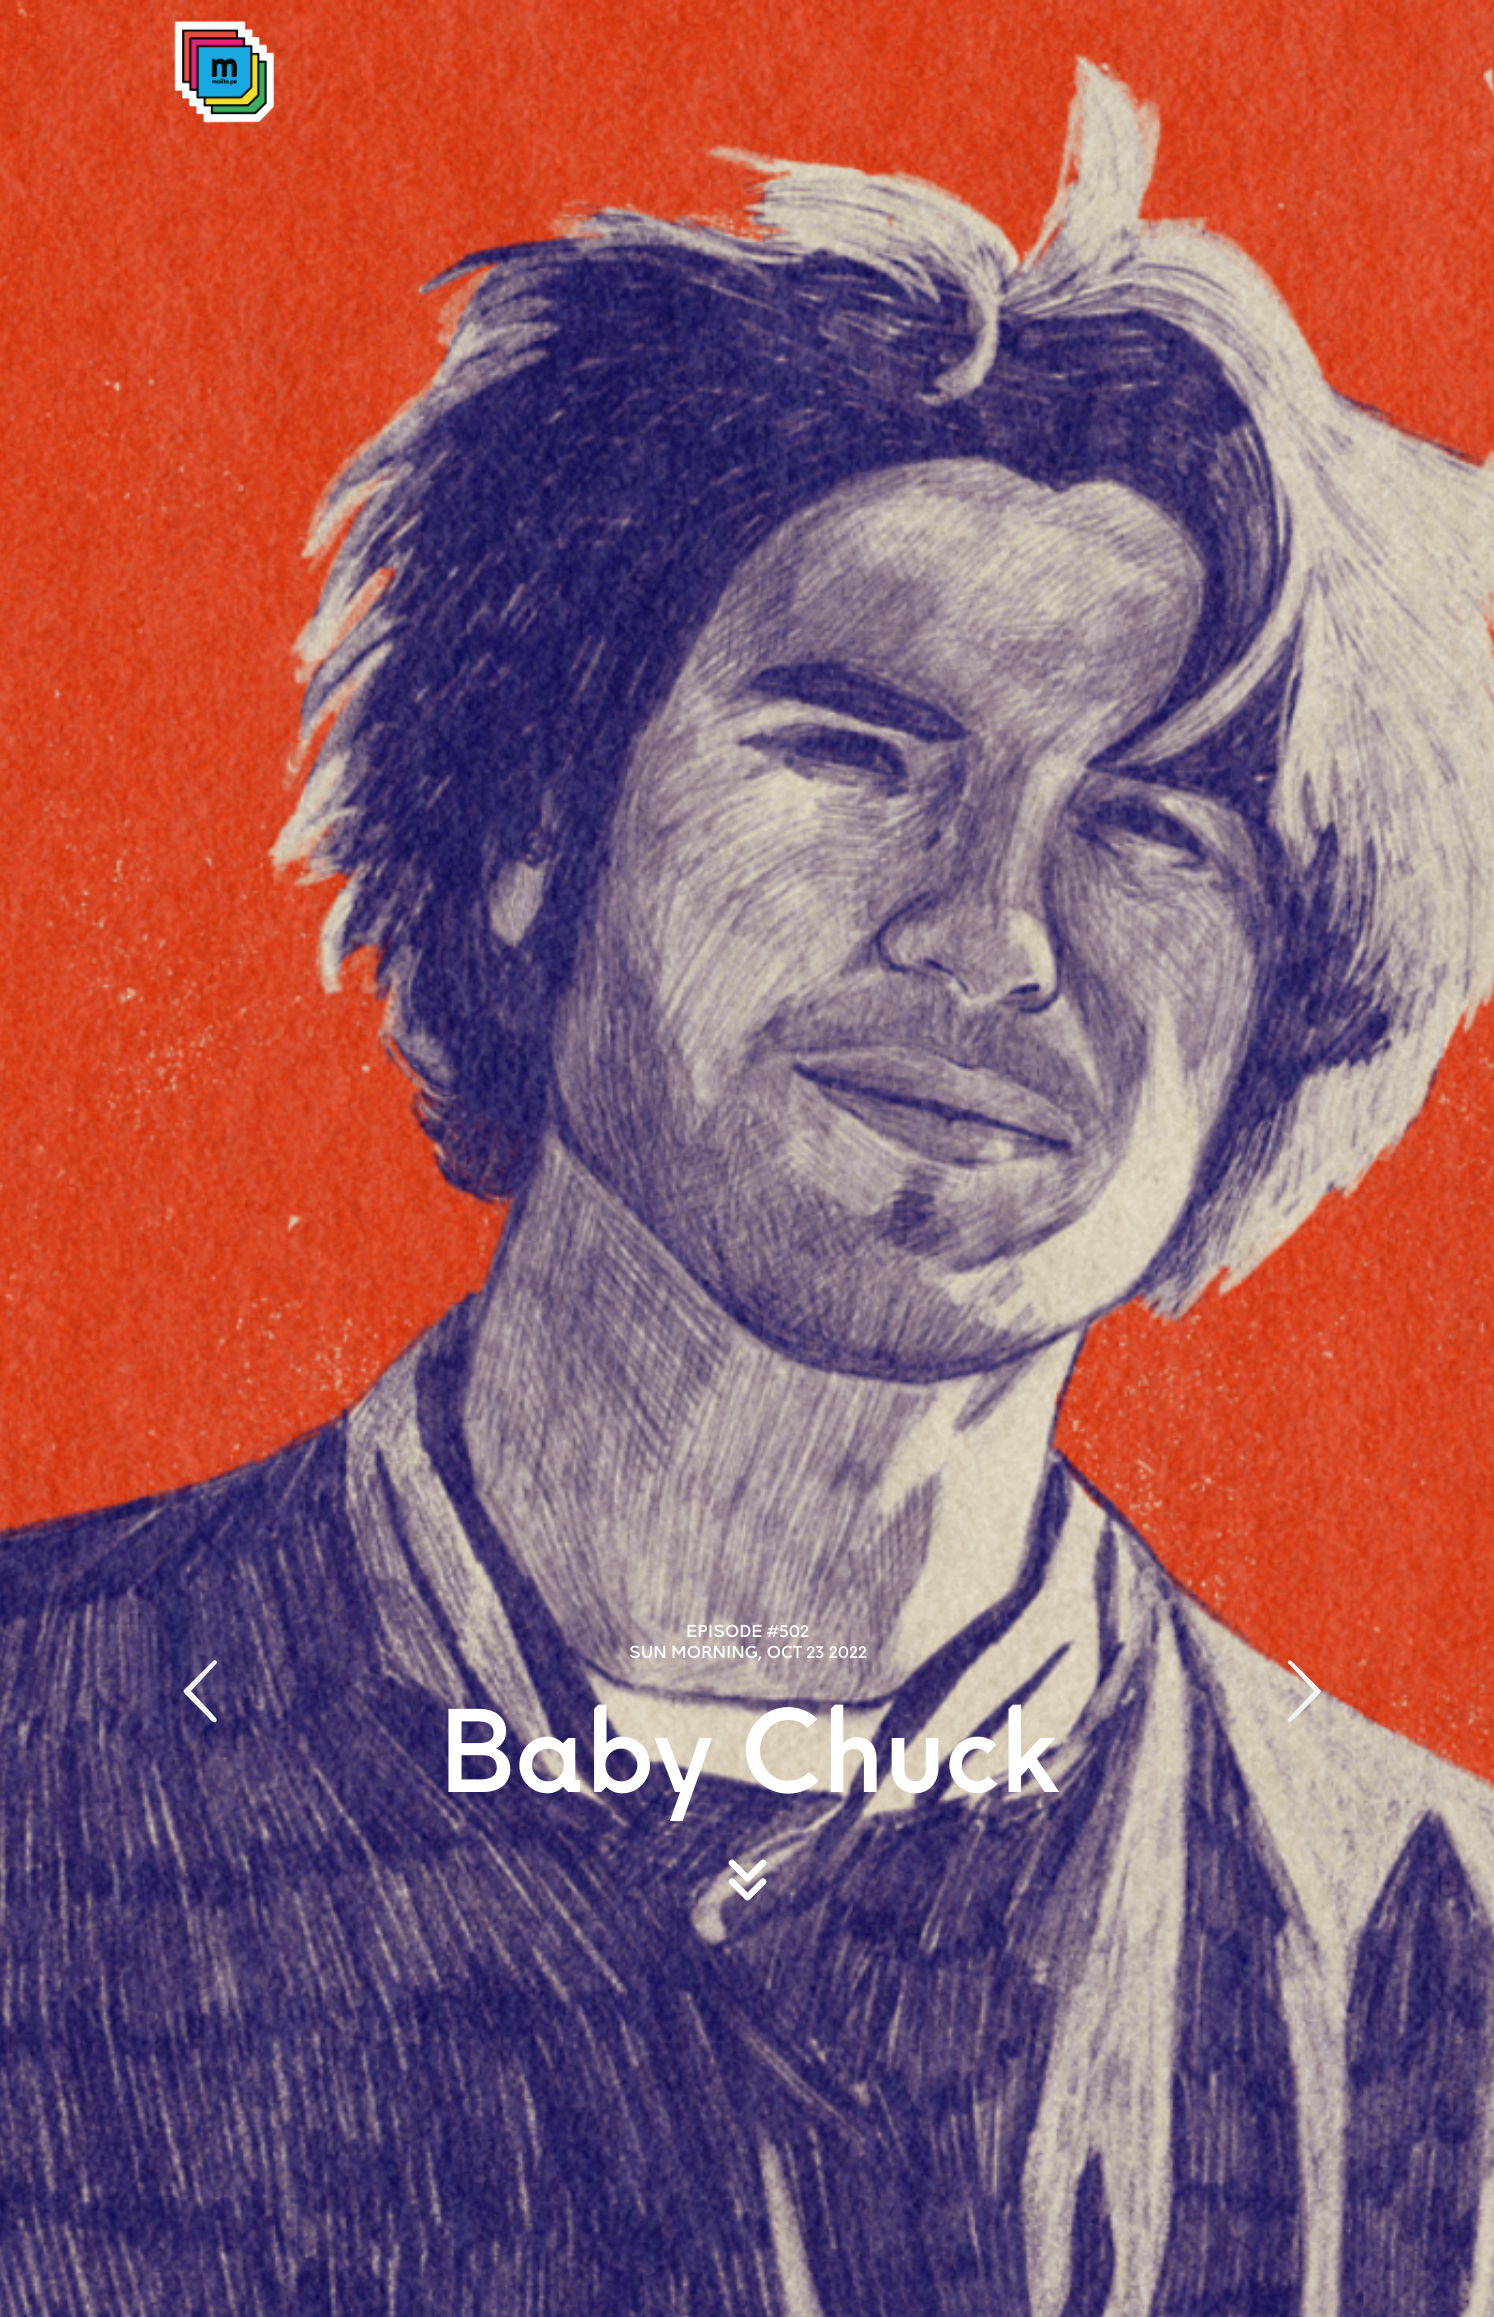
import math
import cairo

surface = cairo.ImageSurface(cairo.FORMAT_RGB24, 1494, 2317)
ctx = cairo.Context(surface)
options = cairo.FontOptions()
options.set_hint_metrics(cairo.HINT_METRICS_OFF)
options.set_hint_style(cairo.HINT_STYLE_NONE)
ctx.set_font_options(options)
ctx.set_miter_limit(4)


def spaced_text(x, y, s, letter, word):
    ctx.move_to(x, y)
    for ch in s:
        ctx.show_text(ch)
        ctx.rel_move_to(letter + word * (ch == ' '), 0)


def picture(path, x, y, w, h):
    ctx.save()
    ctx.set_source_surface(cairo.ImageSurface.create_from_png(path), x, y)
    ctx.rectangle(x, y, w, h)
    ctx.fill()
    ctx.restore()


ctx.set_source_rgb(1, 1, 1)
ctx.paint()
picture("img2.png", 0, 0, 1494, 2317)
picture("img1.png", 174, 21, 101, 102)
ctx.set_source_rgb(0.949, 0.949, 0.949)
ctx.new_path()
ctx.move_to(216, 1718)
ctx.curve_to(217, 1719, 217, 1721, 216, 1722)
ctx.curve_to(213, 1724, 209, 1718, 208, 1717)
ctx.line_to(189, 1698)
ctx.curve_to(189, 1697, 182, 1693, 184, 1690)
ctx.line_to(213, 1661)
ctx.line_to(215, 1660)
ctx.curve_to(217, 1661, 218, 1663, 216, 1664)
ctx.line_to(191, 1691)
ctx.close_path()
ctx.fill()
ctx.select_font_face("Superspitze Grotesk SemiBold")
ctx.set_font_size(17)
ctx.set_source_rgb(1, 1, 1)
ctx.move_to(686, 1637)
ctx.show_text("EPISODE #502")
ctx.move_to(629, 1658)
ctx.show_text("SUN MORNING, OCT 23 2022")
ctx.set_font_size(116.5)
spaced_text(438, 1792, "Baby Chuck", -1.25, 0)
picture("img3.png", 728, 1859, 39, 42)
ctx.set_source_rgb(0.949, 0.949, 0.949)
ctx.new_path()
ctx.move_to(1314, 1691)
ctx.line_to(1288, 1663)
ctx.curve_to(1287, 1662, 1289, 1660, 1290, 1660)
ctx.curve_to(1292, 1661, 1318, 1687, 1320, 1690)
ctx.line_to(1321, 1691)
ctx.line_to(1320, 1693)
ctx.curve_to(1318, 1695, 1292, 1722, 1290, 1722)
ctx.curve_to(1289, 1723, 1287, 1721, 1288, 1719)
ctx.close_path()
ctx.fill()
surface.write_to_png("page.png")
